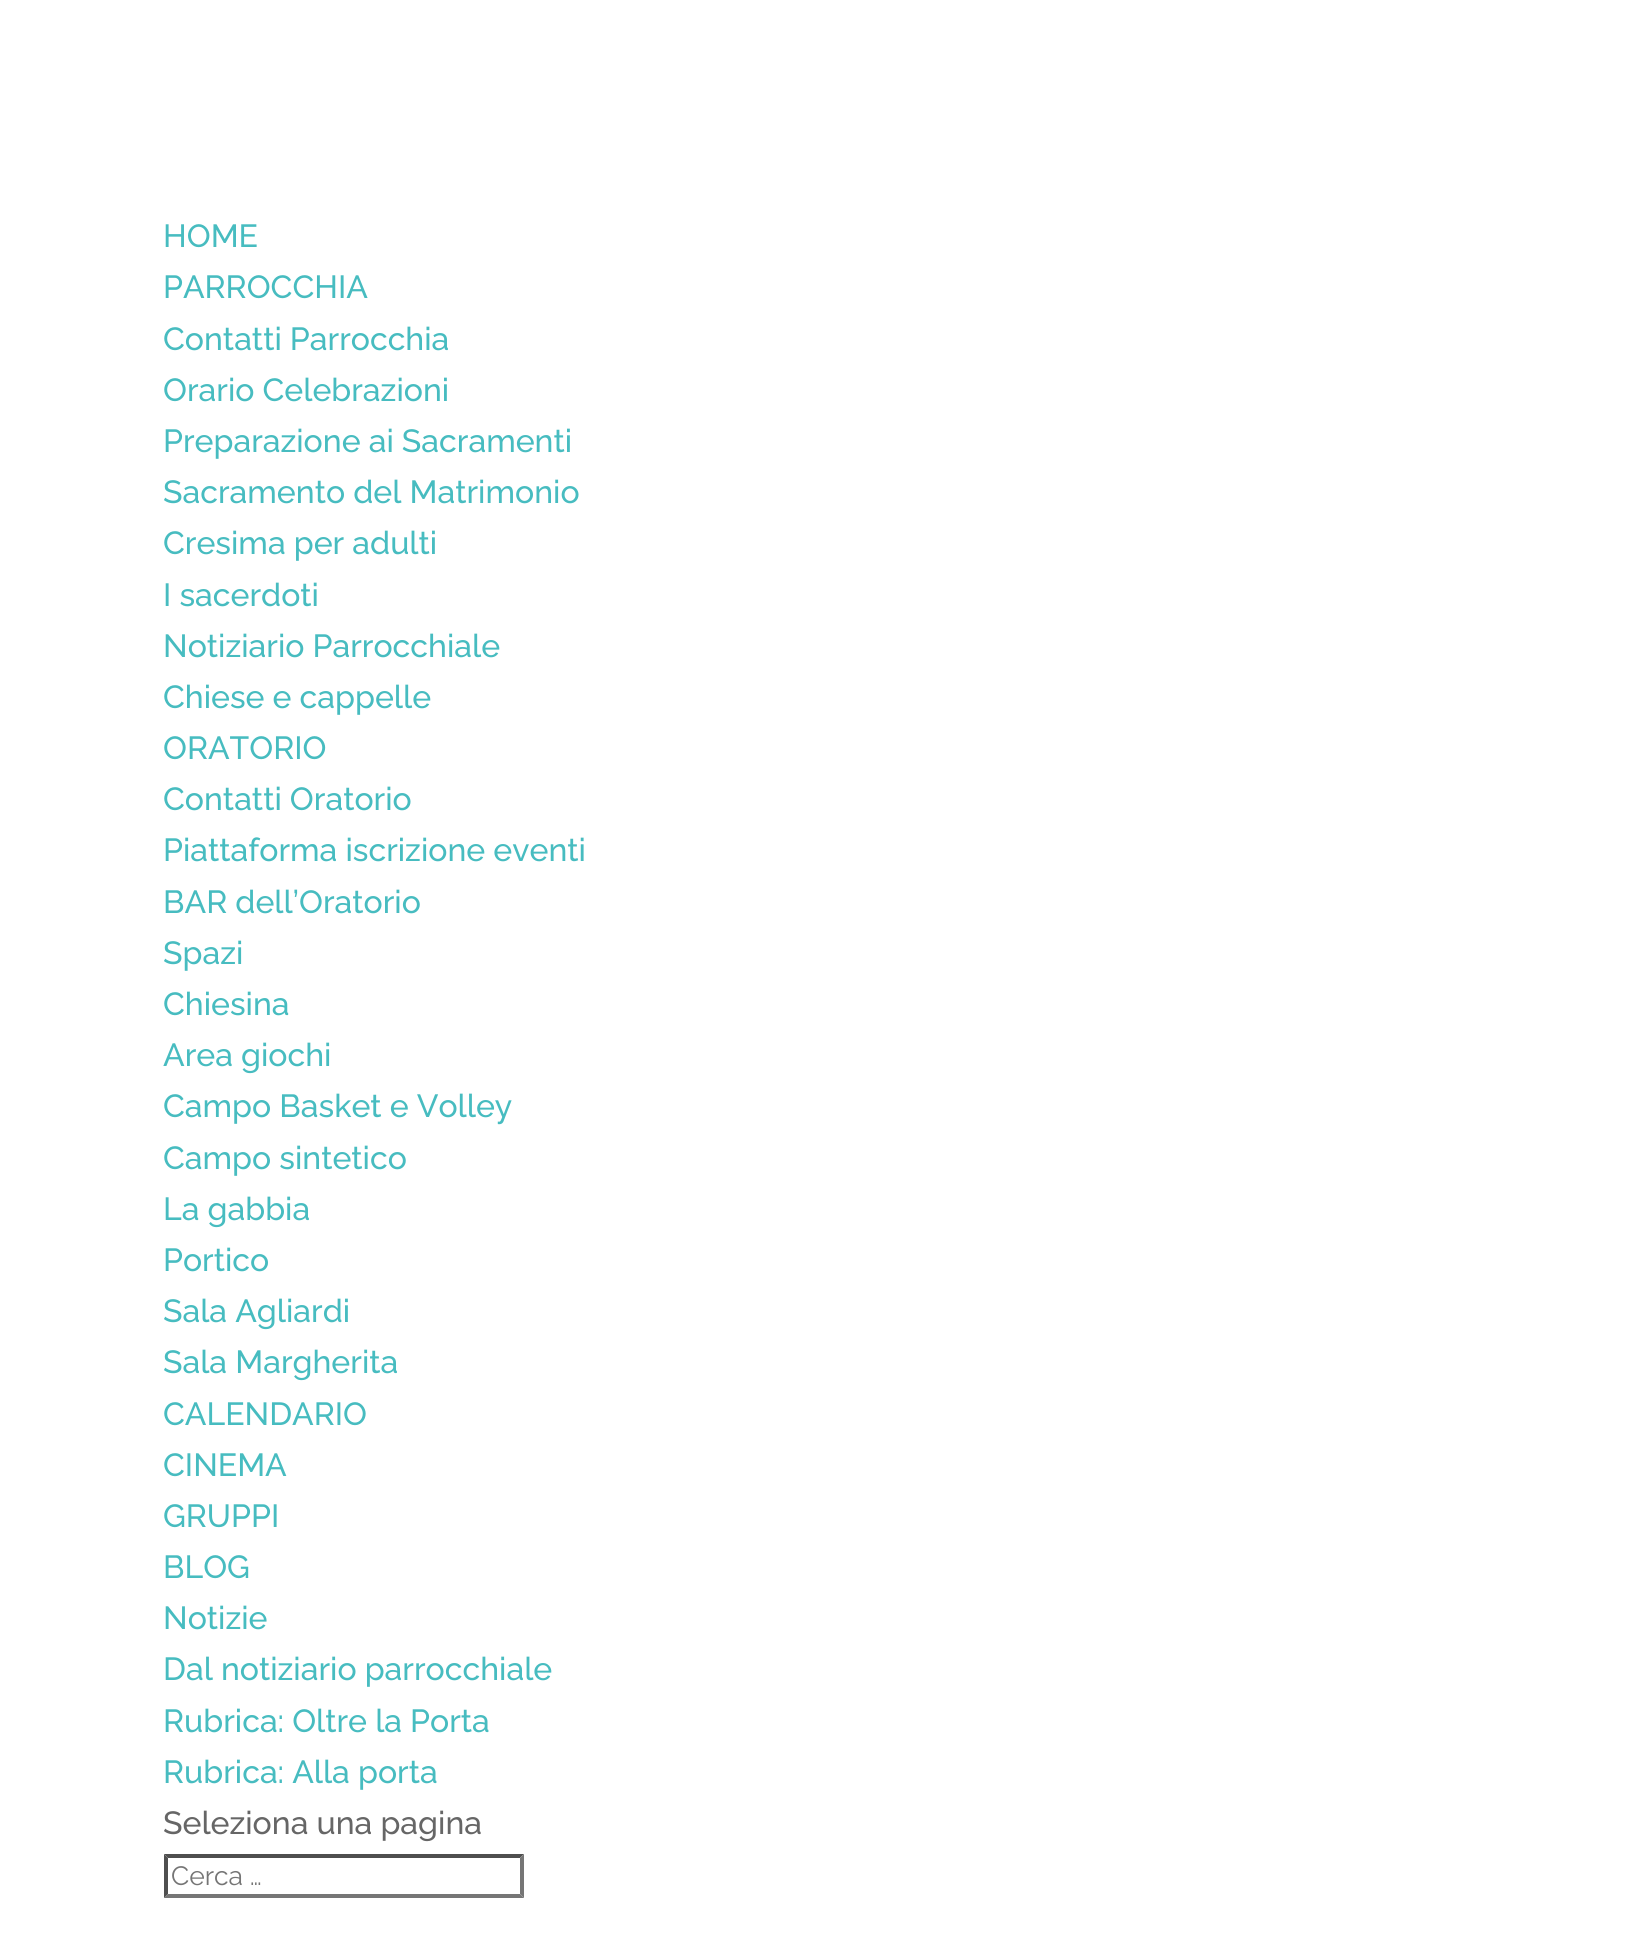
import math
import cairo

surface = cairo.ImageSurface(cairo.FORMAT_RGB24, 1629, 1933)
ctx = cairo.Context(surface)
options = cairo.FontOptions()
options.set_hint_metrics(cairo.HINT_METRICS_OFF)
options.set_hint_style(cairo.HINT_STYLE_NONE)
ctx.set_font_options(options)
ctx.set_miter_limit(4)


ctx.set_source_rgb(1, 1, 1)
ctx.paint()
ctx.select_font_face("Raleway Thin")
ctx.set_font_size(32)
ctx.set_source_rgb(0.278, 0.737, 0.753)
ctx.move_to(163, 247)
ctx.show_text("HOME")
ctx.move_to(163, 298)
ctx.show_text("PARROCCHIA")
ctx.move_to(163, 350)
ctx.show_text("Contatti Parrocchia")
ctx.move_to(163, 401)
ctx.show_text("Orario Celebrazioni")
ctx.move_to(163, 452)
ctx.show_text("Preparazione ai Sacramenti")
ctx.move_to(163, 503)
ctx.show_text("Sacramento del Matrimonio")
ctx.move_to(163, 554)
ctx.show_text("Cresima per adulti")
ctx.move_to(163, 606)
ctx.show_text("I sacerdoti")
ctx.move_to(163, 657)
ctx.show_text("Notiziario Parrocchiale")
ctx.move_to(163, 708)
ctx.show_text("Chiese e cappelle")
ctx.move_to(163, 759)
ctx.show_text("ORATORIO")
ctx.move_to(163, 810)
ctx.show_text("Contatti Oratorio")
ctx.move_to(163, 861)
ctx.show_text("Piattaforma iscrizione eventi")
ctx.move_to(163, 913)
ctx.show_text("BAR dell’Oratorio")
ctx.move_to(163, 964)
ctx.show_text("Spazi")
ctx.move_to(163, 1015)
ctx.show_text("Chiesina")
ctx.move_to(163, 1066)
ctx.show_text("Area giochi")
ctx.move_to(163, 1117)
ctx.show_text("Campo Basket e Volley")
ctx.move_to(163, 1169)
ctx.show_text("Campo sintetico")
ctx.move_to(163, 1220)
ctx.show_text("La gabbia")
ctx.move_to(163, 1271)
ctx.show_text("Portico")
ctx.move_to(163, 1322)
ctx.show_text("Sala Agliardi")
ctx.move_to(163, 1373)
ctx.show_text("Sala Margherita")
ctx.move_to(163, 1425)
ctx.show_text("CALENDARIO")
ctx.move_to(163, 1476)
ctx.show_text("CINEMA")
ctx.move_to(163, 1527)
ctx.show_text("GRUPPI")
ctx.move_to(163, 1578)
ctx.show_text("BLOG")
ctx.move_to(163, 1629)
ctx.show_text("Notizie")
ctx.move_to(163, 1680)
ctx.show_text("Dal notiziario parrocchiale")
ctx.move_to(163, 1732)
ctx.show_text("Rubrica: Oltre la Porta")
ctx.move_to(163, 1783)
ctx.show_text("Rubrica: Alla porta")
ctx.set_source_rgb(0.4, 0.4, 0.4)
ctx.move_to(163, 1834)
ctx.show_text("Seleziona una pagina")
ctx.set_source_rgb(0.31, 0.31, 0.31)
ctx.new_path()
ctx.move_to(164, 1854)
ctx.line_to(524, 1854)
ctx.line_to(520, 1858)
ctx.line_to(168, 1858)
ctx.close_path()
ctx.fill()
ctx.set_source_rgb(0.463, 0.463, 0.463)
ctx.new_path()
ctx.move_to(524, 1854)
ctx.line_to(524, 1898)
ctx.line_to(520, 1894)
ctx.line_to(520, 1858)
ctx.close_path()
ctx.fill()
ctx.new_path()
ctx.move_to(524, 1898)
ctx.line_to(164, 1898)
ctx.line_to(168, 1894)
ctx.line_to(520, 1894)
ctx.close_path()
ctx.fill()
ctx.set_source_rgb(0.31, 0.31, 0.31)
ctx.new_path()
ctx.move_to(164, 1898)
ctx.line_to(164, 1854)
ctx.line_to(168, 1858)
ctx.line_to(168, 1894)
ctx.close_path()
ctx.fill()
ctx.select_font_face("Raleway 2 Thin")
ctx.set_font_size(26.5)
ctx.set_source_rgb(0.459, 0.459, 0.459)
ctx.move_to(171, 1885)
ctx.show_text("Cerca …")
surface.write_to_png("page.png")
